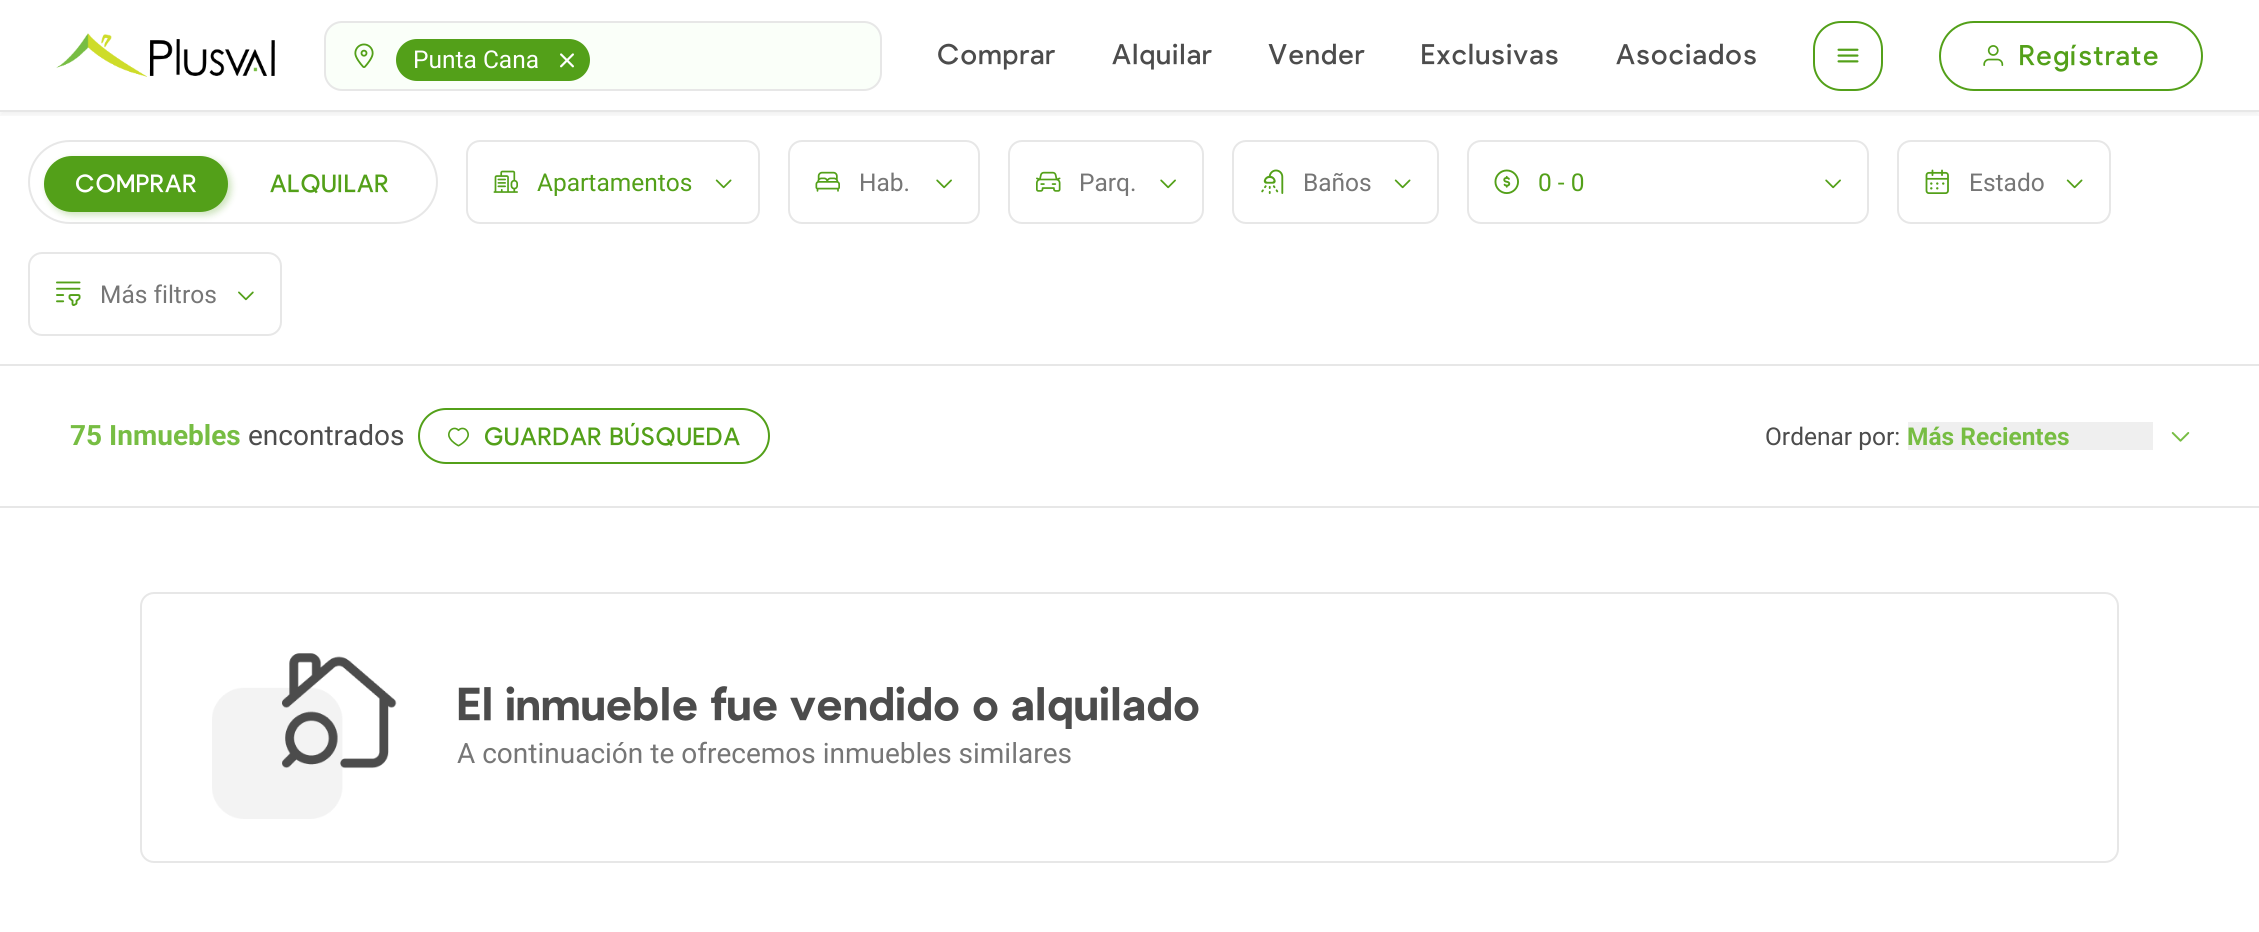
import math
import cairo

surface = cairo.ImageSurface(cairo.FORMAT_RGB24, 2259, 932)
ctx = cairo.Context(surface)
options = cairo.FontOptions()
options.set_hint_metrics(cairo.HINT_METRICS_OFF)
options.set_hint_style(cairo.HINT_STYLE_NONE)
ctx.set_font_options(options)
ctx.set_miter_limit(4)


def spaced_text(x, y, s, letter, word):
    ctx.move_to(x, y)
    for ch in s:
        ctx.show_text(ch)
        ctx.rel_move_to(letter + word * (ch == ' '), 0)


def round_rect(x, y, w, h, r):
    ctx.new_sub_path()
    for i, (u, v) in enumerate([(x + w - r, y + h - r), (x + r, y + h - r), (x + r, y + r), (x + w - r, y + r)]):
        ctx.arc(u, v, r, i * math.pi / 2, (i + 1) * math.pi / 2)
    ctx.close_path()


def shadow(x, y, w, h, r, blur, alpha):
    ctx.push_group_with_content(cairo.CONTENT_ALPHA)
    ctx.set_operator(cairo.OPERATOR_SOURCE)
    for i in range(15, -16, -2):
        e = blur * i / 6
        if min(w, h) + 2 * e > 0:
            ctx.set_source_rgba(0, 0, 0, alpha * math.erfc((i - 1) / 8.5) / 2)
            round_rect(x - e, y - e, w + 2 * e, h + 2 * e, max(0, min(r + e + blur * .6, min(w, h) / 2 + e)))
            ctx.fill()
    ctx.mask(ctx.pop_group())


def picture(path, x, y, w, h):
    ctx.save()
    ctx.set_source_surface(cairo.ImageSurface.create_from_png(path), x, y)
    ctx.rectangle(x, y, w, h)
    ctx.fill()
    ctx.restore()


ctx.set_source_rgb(1, 1, 1)
ctx.paint()
ctx.save()
ctx.rectangle(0, 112, 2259, 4)
ctx.clip()
ctx.set_source_rgb(0, 0, 0)
shadow(0, 4, 2259, 112, 0, 2, 0.05)
ctx.restore()
ctx.set_source_rgb(0.906, 0.906, 0.906)
ctx.rectangle(0, 110, 2259, 2)
ctx.fill()
picture("img1.png", 56, 33, 219, 44)
ctx.set_source_rgb(0.98, 1, 0.973)
round_rect(325, 22, 556, 68, 17)
ctx.fill_preserve()
ctx.set_source_rgb(0.906, 0.906, 0.906)
ctx.stroke()
picture("img2.png", 354, 43, 20, 25)
ctx.set_source_rgb(0.325, 0.627, 0.098)
round_rect(396, 39, 194, 42, 21)
ctx.fill()
ctx.select_font_face("Roboto")
ctx.set_font_size(24.5)
ctx.set_source_rgb(1, 1, 1)
ctx.move_to(413, 68)
ctx.show_text("Punta Cana")
picture("img3.png", 560, 53, 14, 15)
ctx.select_font_face("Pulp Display")
ctx.set_font_size(28)
ctx.set_source_rgb(0.298, 0.298, 0.298)
spaced_text(937, 64, "Comprar", 1, 0)
spaced_text(1112, 64, "Alquilar", 1, 0)
spaced_text(1268, 64, "Vender", 1, 0)
spaced_text(1421, 64, "Exclusivas", 1, 0)
spaced_text(1616, 64, "Asociados", 1, 0)
round_rect(1814, 22, 68, 68, 27)
ctx.set_source_rgb(0.325, 0.627, 0.098)
ctx.stroke()
picture("img4.png", 1837, 48, 22, 15)
round_rect(1940, 22, 262, 68, 34)
ctx.stroke()
picture("img5.png", 1983, 45, 21, 21)
spaced_text(2019, 65, "Regístrate", 1, 0)
ctx.set_source_rgb(0.906, 0.906, 0.906)
ctx.rectangle(0, 364, 2259, 2)
ctx.fill()
round_rect(29, 141, 408, 82, 41)
ctx.stroke()
ctx.set_source_rgb(0.325, 0.627, 0.098)
shadow(47, 159, 184, 56, 28, 3.5, 0.3)
ctx.set_source_rgb(0.325, 0.627, 0.098)
round_rect(44, 156, 184, 56, 28)
ctx.fill()
ctx.set_font_size(24.5)
ctx.set_source_rgb(1, 1, 1)
spaced_text(75, 192, "COMPRAR", 0.9, 0)
ctx.set_source_rgb(0.325, 0.627, 0.098)
spaced_text(270, 192, "ALQUILAR", 0.9, 0)
picture("img6.png", 493, 170, 25, 23)
picture("img7.png", 715, 179, 17, 10)
round_rect(467, 141, 292, 82, 13)
ctx.set_source_rgb(0.906, 0.906, 0.906)
ctx.stroke()
ctx.select_font_face("Roboto")
ctx.set_source_rgb(0.325, 0.627, 0.098)
ctx.move_to(537, 191)
ctx.show_text("Apartamentos")
picture("img8.png", 815, 171, 25, 21)
picture("img9.png", 936, 179, 16, 10)
round_rect(789, 141, 190, 82, 13)
ctx.set_source_rgb(0.906, 0.906, 0.906)
ctx.stroke()
ctx.set_source_rgb(0.463, 0.463, 0.463)
ctx.move_to(859, 191)
ctx.show_text("Hab.")
picture("img10.png", 1036, 171, 25, 21)
picture("img9.png", 1160, 179, 16, 10)
round_rect(1009, 141, 194, 82, 13)
ctx.set_source_rgb(0.906, 0.906, 0.906)
ctx.stroke()
ctx.set_source_rgb(0.463, 0.463, 0.463)
ctx.move_to(1079, 191)
ctx.show_text("Parq.")
picture("img11.png", 1261, 169, 23, 25)
picture("img7.png", 1394, 179, 17, 10)
round_rect(1233, 141, 205, 82, 13)
ctx.set_source_rgb(0.906, 0.906, 0.906)
ctx.stroke()
ctx.set_source_rgb(0.463, 0.463, 0.463)
ctx.move_to(1303, 191)
ctx.show_text("Baños")
picture("img12.png", 1494, 169, 25, 25)
picture("img9.png", 1825, 179, 16, 10)
round_rect(1468, 141, 400, 82, 13)
ctx.set_source_rgb(0.906, 0.906, 0.906)
ctx.stroke()
ctx.set_source_rgb(0.325, 0.627, 0.098)
ctx.move_to(1538, 191)
ctx.show_text("0 - 0")
picture("img13.png", 1925, 169, 24, 25)
picture("img7.png", 2066, 179, 17, 10)
round_rect(1898, 141, 212, 82, 13)
ctx.set_source_rgb(0.906, 0.906, 0.906)
ctx.stroke()
ctx.set_source_rgb(0.463, 0.463, 0.463)
ctx.move_to(1969, 191)
ctx.show_text("Estado")
picture("img14.png", 56, 281, 25, 25)
picture("img15.png", 238, 291, 16, 10)
round_rect(29, 253, 252, 82, 13)
ctx.set_source_rgb(0.906, 0.906, 0.906)
ctx.stroke()
ctx.set_source_rgb(0.463, 0.463, 0.463)
ctx.move_to(100, 303)
ctx.show_text("Más filtros")
ctx.set_source_rgb(0.906, 0.906, 0.906)
ctx.rectangle(0, 506, 2259, 2)
ctx.fill()
ctx.select_font_face("Roboto", cairo.FONT_SLANT_NORMAL, cairo.FONT_WEIGHT_BOLD)
ctx.set_font_size(28)
ctx.set_source_rgb(0.467, 0.741, 0.263)
ctx.move_to(70, 445)
ctx.show_text("75 Inmuebles")
ctx.select_font_face("Roboto")
ctx.set_source_rgb(0.298, 0.298, 0.298)
ctx.move_to(248, 445)
ctx.show_text("encontrados")
round_rect(419, 409, 350, 54, 27)
ctx.set_source_rgb(0.325, 0.627, 0.098)
ctx.stroke()
picture("img16.png", 448, 427, 21, 20)
ctx.select_font_face("Pulp Display")
ctx.set_font_size(24.5)
spaced_text(484, 445, "GUARDAR BÚSQUEDA", 0.9, 0)
ctx.select_font_face("Roboto")
ctx.set_source_rgb(0.298, 0.298, 0.298)
ctx.move_to(1765, 445)
ctx.show_text("Ordenar por:")
ctx.set_source_rgb(0.937, 0.937, 0.937)
ctx.rectangle(1908, 422, 245, 28)
ctx.fill()
ctx.select_font_face("Roboto", cairo.FONT_SLANT_NORMAL, cairo.FONT_WEIGHT_BOLD)
ctx.set_source_rgb(0.467, 0.741, 0.263)
ctx.move_to(1907, 445)
ctx.show_text("Más Recientes")
picture("img17.png", 2171, 432, 19, 10)
round_rect(141, 593, 1977, 269, 13)
ctx.set_source_rgb(0.906, 0.906, 0.906)
ctx.stroke()
picture("img18.png", 212, 653, 185, 166)
ctx.select_font_face("Pulp Display", cairo.FONT_SLANT_NORMAL, cairo.FONT_WEIGHT_BOLD)
ctx.set_font_size(45.5)
ctx.set_source_rgb(0.298, 0.298, 0.298)
ctx.move_to(457, 720)
ctx.show_text("El inmueble fue vendido o alquilado")
ctx.select_font_face("Roboto")
ctx.set_font_size(28)
ctx.set_source_rgb(0.463, 0.463, 0.463)
ctx.move_to(457, 763)
ctx.show_text("A continuación te ofrecemos inmuebles similares")
surface.write_to_png("page.png")
